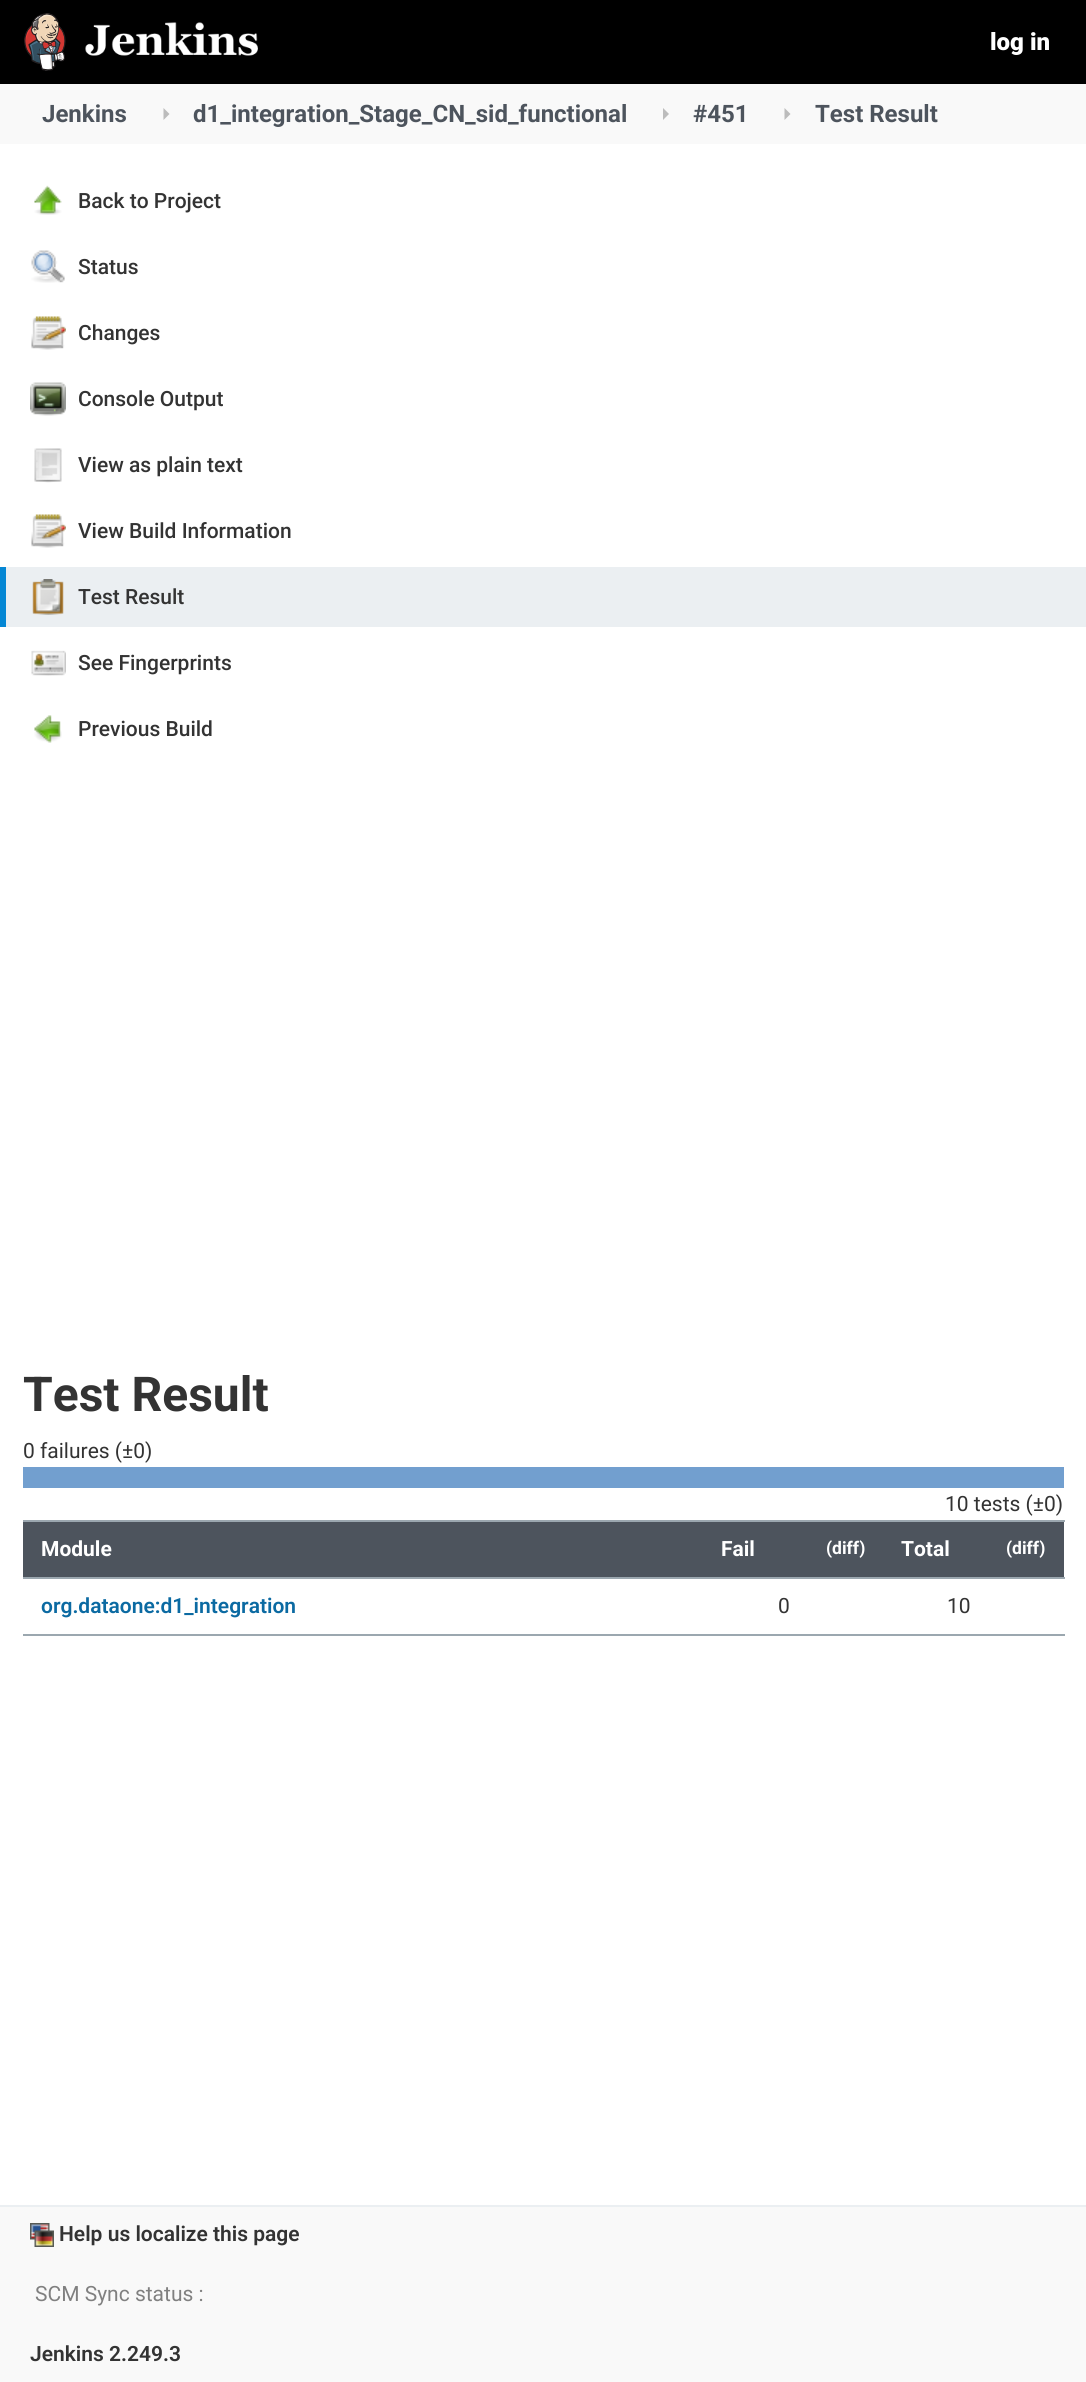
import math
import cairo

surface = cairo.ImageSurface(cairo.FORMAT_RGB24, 1086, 2382)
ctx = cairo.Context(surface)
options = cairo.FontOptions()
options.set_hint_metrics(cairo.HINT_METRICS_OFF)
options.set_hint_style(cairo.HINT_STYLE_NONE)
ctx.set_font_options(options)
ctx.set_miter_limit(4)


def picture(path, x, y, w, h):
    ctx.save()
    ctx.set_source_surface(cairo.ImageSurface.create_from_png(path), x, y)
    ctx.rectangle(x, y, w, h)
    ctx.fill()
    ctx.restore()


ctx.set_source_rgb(1, 1, 1)
ctx.paint()
ctx.set_source_rgb(0, 0, 0)
ctx.rectangle(0, 0, 1086, 84)
ctx.fill()
picture("img1.png", 24, 13, 42, 58)
picture("img2.png", 85, 22, 173, 34)
ctx.select_font_face("Roboto Black")
ctx.set_font_size(24)
ctx.set_source_rgb(1, 1, 1)
ctx.move_to(990, 50)
ctx.show_text("log in")
ctx.set_source_rgb(0.973, 0.973, 0.973)
ctx.rectangle(0, 84, 1086, 60)
ctx.fill()
ctx.select_font_face("Roboto", cairo.FONT_SLANT_NORMAL, cairo.FONT_WEIGHT_BOLD)
ctx.set_source_rgb(0.302, 0.329, 0.365)
ctx.move_to(42, 122)
ctx.show_text("Jenkins")
ctx.set_source_rgb(0.737, 0.737, 0.737)
ctx.new_path()
ctx.move_to(163.5, 120)
ctx.line_to(163.5, 108)
ctx.line_to(169.5, 114)
ctx.close_path()
ctx.fill()
ctx.set_source_rgb(0.302, 0.329, 0.365)
ctx.move_to(193, 122)
ctx.show_text("d1_integration_Stage_CN_sid_functional")
ctx.set_source_rgb(0.737, 0.737, 0.737)
ctx.new_path()
ctx.move_to(663, 120)
ctx.line_to(663, 108)
ctx.line_to(669, 114)
ctx.close_path()
ctx.fill()
ctx.set_source_rgb(0.302, 0.329, 0.365)
ctx.move_to(693, 122)
ctx.show_text("#451")
ctx.set_source_rgb(0.737, 0.737, 0.737)
ctx.new_path()
ctx.move_to(784.5, 120)
ctx.line_to(784.5, 108)
ctx.line_to(790.5, 114)
ctx.close_path()
ctx.fill()
ctx.set_source_rgb(0.302, 0.329, 0.365)
ctx.move_to(815, 122)
ctx.show_text("Test Result")
picture("img3.png", 34, 185, 28, 30)
ctx.select_font_face("Roboto Medium")
ctx.set_font_size(21)
ctx.set_source_rgb(0.2, 0.2, 0.2)
ctx.move_to(78, 208)
ctx.show_text("Back to Project")
picture("img4.png", 31, 250, 34, 33)
ctx.move_to(78, 274)
ctx.show_text("Status")
picture("img5.png", 31, 316, 35, 34)
ctx.move_to(78, 340)
ctx.show_text("Changes")
picture("img6.png", 30, 382, 36, 34)
ctx.move_to(78, 406)
ctx.show_text("Console Output")
picture("img7.png", 34, 448, 28, 35)
ctx.move_to(78, 472)
ctx.show_text("View as plain text")
picture("img5.png", 31, 514, 35, 34)
ctx.move_to(78, 538)
ctx.show_text("View Build Information")
ctx.set_source_rgb(0.918, 0.937, 0.949)
ctx.rectangle(6, 567, 1080, 60)
ctx.fill()
ctx.set_source_rgb(0.02, 0.529, 0.831)
ctx.rectangle(0, 567, 6, 60)
ctx.fill()
picture("img8.png", 32, 579, 32, 36)
ctx.set_source_rgb(0.2, 0.2, 0.2)
ctx.move_to(78, 604)
ctx.show_text("Test Result")
picture("img9.png", 31, 650, 35, 26)
ctx.move_to(78, 670)
ctx.show_text("See Fingerprints")
picture("img10.png", 34, 715, 28, 28)
ctx.move_to(78, 736)
ctx.show_text("Previous Build")
ctx.select_font_face("Roboto", cairo.FONT_SLANT_NORMAL, cairo.FONT_WEIGHT_BOLD)
ctx.set_font_size(48)
ctx.move_to(23, 1411)
ctx.show_text("Test Result")
ctx.select_font_face("Roboto")
ctx.set_font_size(21)
ctx.move_to(23, 1458)
ctx.show_text("0 failures (±0)")
ctx.set_source_rgb(0.447, 0.624, 0.812)
ctx.rectangle(23, 1467, 1041, 21)
ctx.fill()
ctx.set_source_rgb(0.2, 0.2, 0.2)
ctx.move_to(945, 1511)
ctx.show_text("10 tests (±0)")
ctx.set_source_rgb(0.302, 0.329, 0.365)
ctx.rectangle(23, 1522, 1041, 55)
ctx.fill()
ctx.select_font_face("Roboto", cairo.FONT_SLANT_NORMAL, cairo.FONT_WEIGHT_BOLD)
ctx.set_source_rgb(1, 1, 1)
ctx.move_to(41, 1556)
ctx.show_text("Module")
ctx.move_to(721, 1556)
ctx.show_text("Fail")
ctx.set_font_size(17.5)
ctx.move_to(826, 1554)
ctx.show_text("(diff)")
ctx.set_font_size(21)
ctx.move_to(901, 1556)
ctx.show_text("Total")
ctx.set_source_rgb(0.608, 0.655, 0.686)
ctx.rectangle(23, 1520, 1042, 2)
ctx.fill()
ctx.set_font_size(17.5)
ctx.set_source_rgb(1, 1, 1)
ctx.move_to(1006, 1554)
ctx.show_text("(diff)")
ctx.set_source_rgb(0.608, 0.655, 0.686)
ctx.rectangle(23, 1577, 1042, 2)
ctx.fill()
ctx.rectangle(23, 1634, 1042, 2)
ctx.fill()
ctx.select_font_face("Roboto SemiBold")
ctx.set_font_size(21)
ctx.set_source_rgb(0.043, 0.416, 0.635)
ctx.move_to(41, 1613)
ctx.show_text("org.dataone:d1_integration")
ctx.select_font_face("Roboto")
ctx.set_source_rgb(0.2, 0.2, 0.2)
ctx.move_to(778, 1613)
ctx.show_text("0")
ctx.move_to(947, 1613)
ctx.show_text("10")
ctx.set_source_rgb(0.973, 0.973, 0.973)
ctx.rectangle(0, 2207, 1086, 175)
ctx.fill()
ctx.set_source_rgb(0.918, 0.937, 0.949)
ctx.rectangle(0, 2205, 1086, 2)
ctx.fill()
picture("img11.png", 30, 2223, 24, 24)
ctx.select_font_face("Roboto SemiBold")
ctx.set_source_rgb(0.2, 0.2, 0.2)
ctx.move_to(59, 2241)
ctx.show_text("Help us localize this page")
ctx.select_font_face("Roboto")
ctx.set_source_rgb(0.502, 0.502, 0.502)
ctx.move_to(35, 2301)
ctx.show_text("SCM Sync status :")
ctx.select_font_face("Roboto SemiBold")
ctx.set_source_rgb(0.2, 0.2, 0.2)
ctx.move_to(30, 2361)
ctx.show_text("Jenkins 2.249.3")
surface.write_to_png("page.png")
